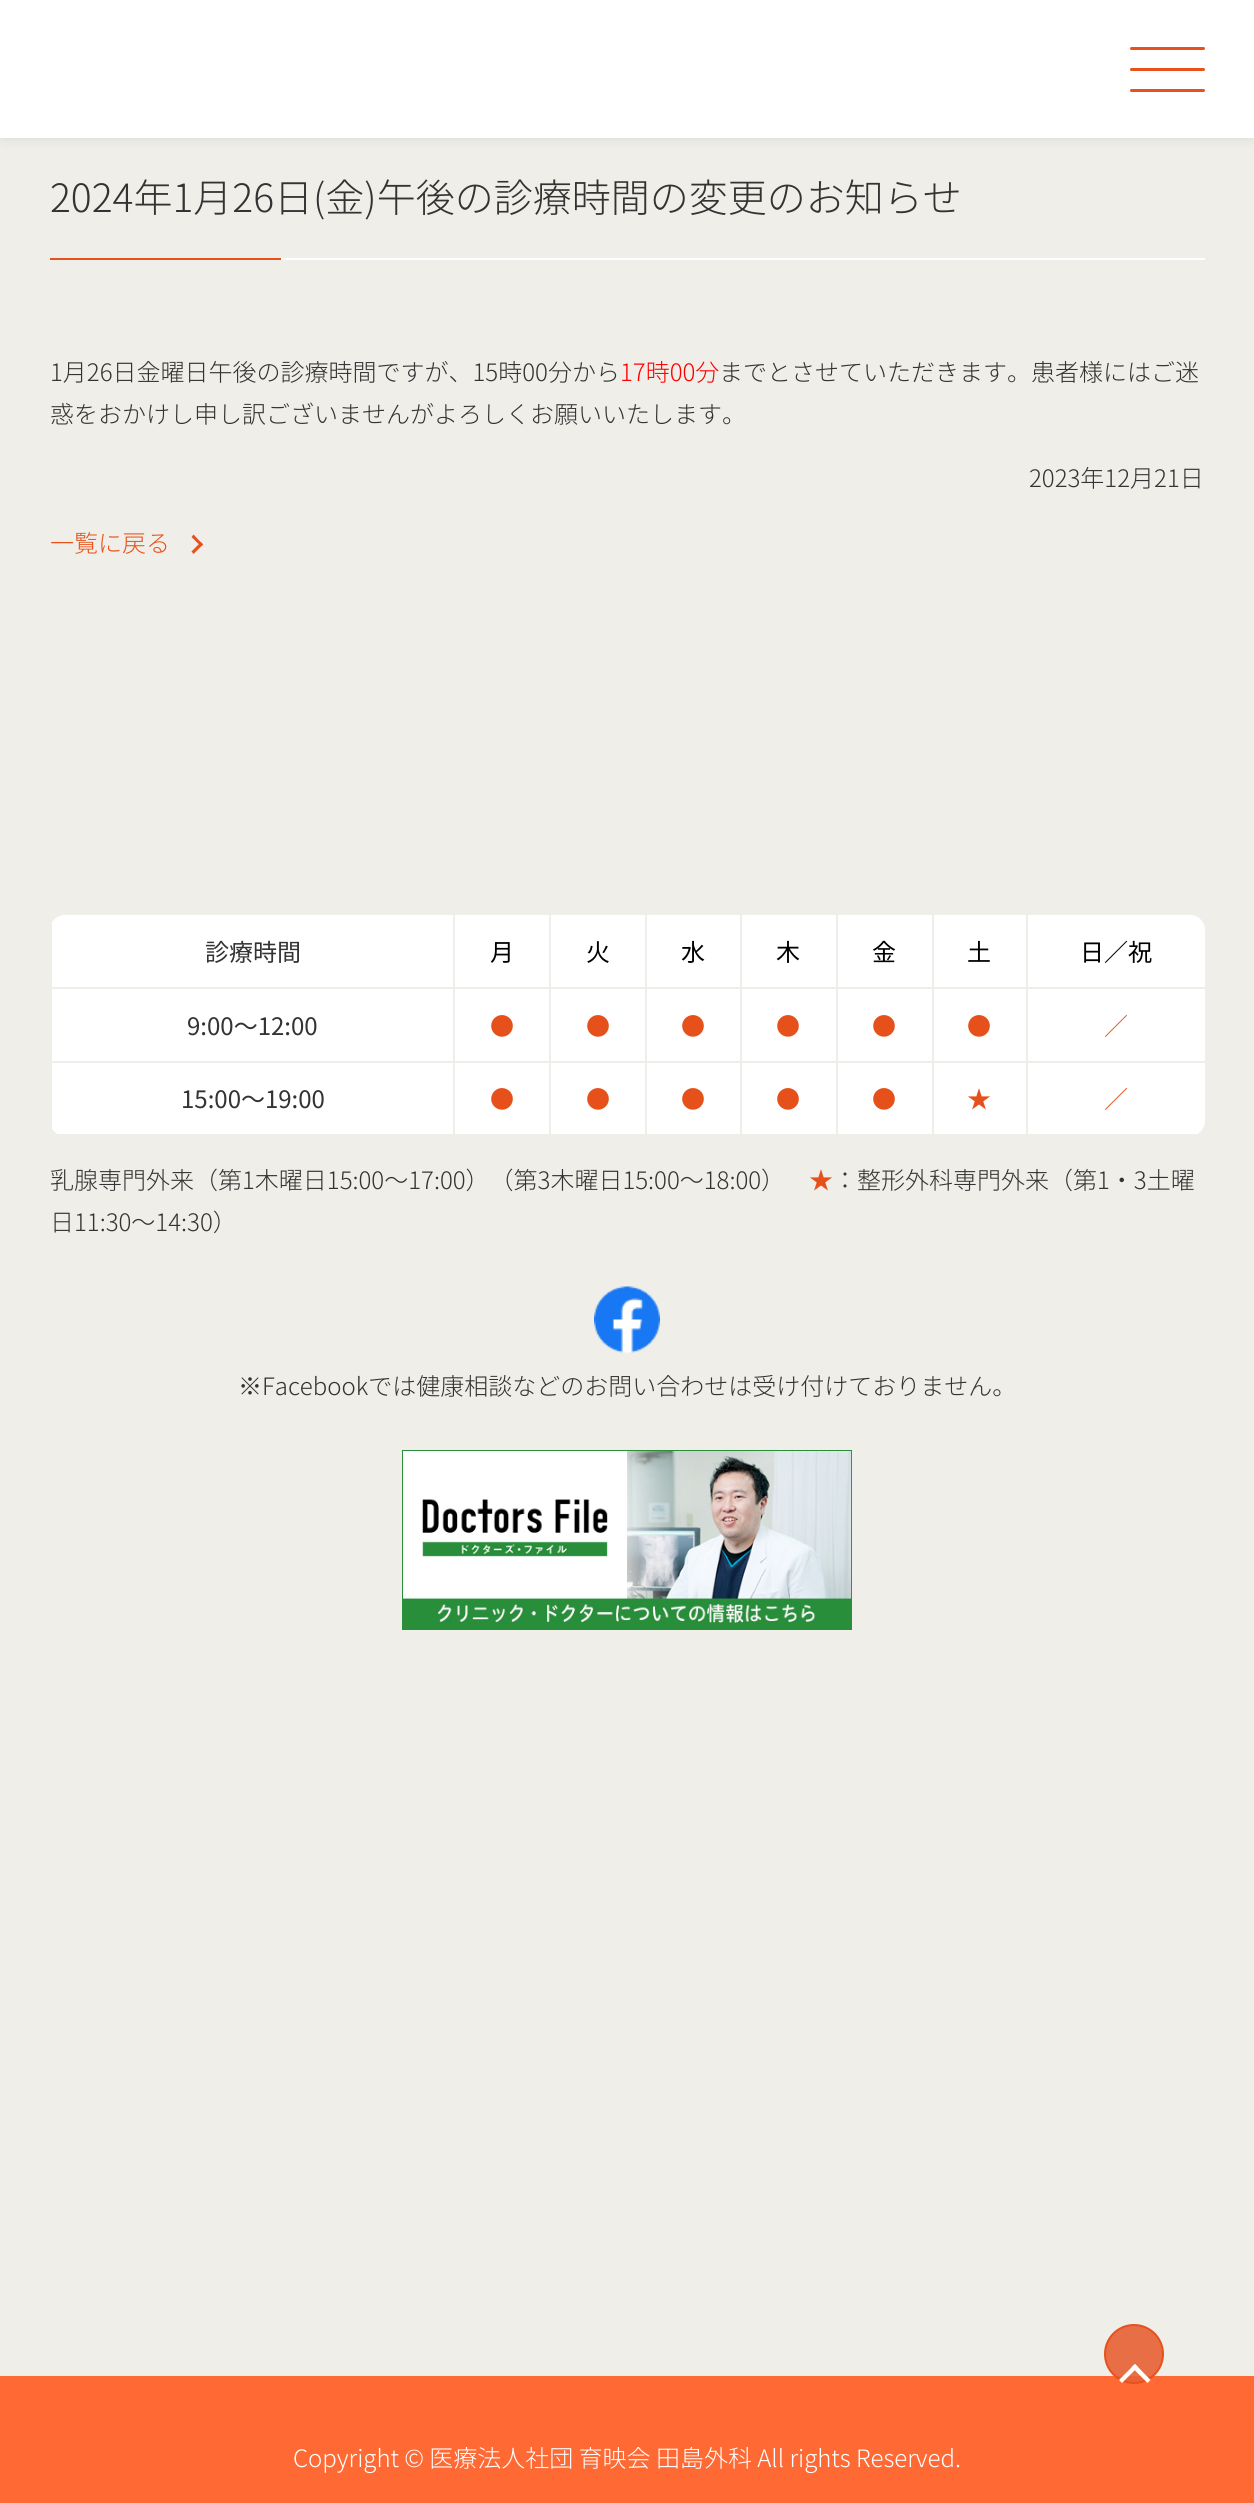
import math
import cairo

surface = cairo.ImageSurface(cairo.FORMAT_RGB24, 1254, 2503)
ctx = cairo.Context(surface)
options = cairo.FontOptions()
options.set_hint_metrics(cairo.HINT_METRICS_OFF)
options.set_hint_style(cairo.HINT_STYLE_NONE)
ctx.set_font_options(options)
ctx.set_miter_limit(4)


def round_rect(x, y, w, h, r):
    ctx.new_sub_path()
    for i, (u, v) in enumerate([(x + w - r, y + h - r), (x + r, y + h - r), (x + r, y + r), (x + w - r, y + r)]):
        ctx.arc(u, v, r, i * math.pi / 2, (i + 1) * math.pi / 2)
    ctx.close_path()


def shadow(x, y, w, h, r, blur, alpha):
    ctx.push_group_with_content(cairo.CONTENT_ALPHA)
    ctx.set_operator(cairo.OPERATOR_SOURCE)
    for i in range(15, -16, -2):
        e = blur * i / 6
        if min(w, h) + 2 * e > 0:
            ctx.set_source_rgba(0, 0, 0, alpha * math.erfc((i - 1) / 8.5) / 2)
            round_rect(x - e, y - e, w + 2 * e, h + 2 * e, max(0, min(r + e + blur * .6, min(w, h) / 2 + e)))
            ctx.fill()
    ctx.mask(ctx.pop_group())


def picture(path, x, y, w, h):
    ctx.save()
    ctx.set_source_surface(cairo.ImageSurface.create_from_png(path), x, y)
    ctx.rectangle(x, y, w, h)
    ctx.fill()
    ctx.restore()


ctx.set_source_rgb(0.937, 0.933, 0.91)
ctx.paint()
ctx.set_source_rgb(0.788, 0.788, 0.788)
shadow(3, 3, 1248, 132, 0, 7, 1)
ctx.set_source_rgb(1, 1, 1)
ctx.rectangle(0, 0, 1254, 138)
ctx.fill()
ctx.set_source_rgb(0.902, 0.318, 0.114)
round_rect(1130, 47, 75, 3, 1.5)
ctx.fill()
round_rect(1130, 68, 75, 3, 1.5)
ctx.fill()
round_rect(1130, 89, 75, 3, 1.5)
ctx.fill()
ctx.select_font_face("Noto Sans JP Light")
ctx.set_font_size(39)
ctx.set_source_rgb(0.2, 0.2, 0.2)
ctx.move_to(50, 212)
ctx.show_text("2024年1月26日(金)午後の診療時間の変更のお知らせ")
ctx.set_source_rgb(0.902, 0.318, 0.114)
ctx.rectangle(50, 258, 231, 2)
ctx.fill()
ctx.set_source_rgb(1, 1, 1)
ctx.rectangle(281, 258, 924, 2)
ctx.fill()
ctx.set_font_size(24)
ctx.set_source_rgb(0.2, 0.2, 0.2)
ctx.move_to(50, 381)
ctx.show_text("1月26日金曜日午後の診療時間ですが、15時00分から")
ctx.set_source_rgb(1, 0, 0)
ctx.move_to(620, 381)
ctx.show_text("17時00分")
ctx.set_source_rgb(0.2, 0.2, 0.2)
ctx.move_to(719, 381)
ctx.show_text("までとさせていただきます。患者様にはご迷")
ctx.move_to(50, 423)
ctx.show_text("惑をおかけし申し訳ございませんがよろしくお願いいたします。")
ctx.move_to(1029, 487)
ctx.show_text("2023年12月21日")
ctx.set_source_rgb(0.902, 0.318, 0.106)
ctx.move_to(50, 552)
ctx.show_text("一覧に戻る")
ctx.set_source_rgb(0.902, 0.318, 0.114)
ctx.new_path()
ctx.move_to(193.5, 534.5)
ctx.line_to(203, 544.5)
ctx.line_to(201, 546.5)
ctx.line_to(191.5, 537)
ctx.close_path()
ctx.fill()
ctx.new_path()
ctx.move_to(201, 542)
ctx.line_to(203, 544.5)
ctx.line_to(193.5, 554)
ctx.line_to(191.5, 551.5)
ctx.close_path()
ctx.fill()
ctx.set_source_rgb(1, 1, 1)
round_rect(50, 915, 1155, 221, 15)
ctx.fill()
ctx.set_source_rgb(0.937, 0.933, 0.91)
ctx.rectangle(1026, 1134, 179, 2)
ctx.fill()
ctx.rectangle(1026, 1061, 2, 75)
ctx.fill()
ctx.rectangle(1026, 1061, 179, 2)
ctx.fill()
ctx.rectangle(1026, 987, 2, 75)
ctx.fill()
ctx.rectangle(1026, 987, 179, 2)
ctx.fill()
ctx.rectangle(1026, 914, 2, 75)
ctx.fill()
ctx.rectangle(932, 1134, 96, 2)
ctx.fill()
ctx.rectangle(932, 1061, 2, 75)
ctx.fill()
ctx.rectangle(932, 1061, 96, 2)
ctx.fill()
ctx.rectangle(932, 987, 2, 75)
ctx.fill()
ctx.rectangle(932, 987, 96, 2)
ctx.fill()
ctx.rectangle(932, 914, 2, 75)
ctx.fill()
ctx.rectangle(836, 1134, 97, 2)
ctx.fill()
ctx.rectangle(836, 1061, 2, 75)
ctx.fill()
ctx.rectangle(836, 1061, 97, 2)
ctx.fill()
ctx.rectangle(836, 987, 2, 75)
ctx.fill()
ctx.rectangle(836, 987, 97, 2)
ctx.fill()
ctx.rectangle(836, 914, 2, 75)
ctx.fill()
ctx.rectangle(740, 1134, 97, 2)
ctx.fill()
ctx.rectangle(740, 1061, 2, 75)
ctx.fill()
ctx.rectangle(740, 1061, 97, 2)
ctx.fill()
ctx.rectangle(740, 987, 2, 75)
ctx.fill()
ctx.rectangle(740, 987, 97, 2)
ctx.fill()
ctx.rectangle(740, 914, 2, 75)
ctx.fill()
ctx.rectangle(645, 1134, 96, 2)
ctx.fill()
ctx.rectangle(645, 1061, 2, 75)
ctx.fill()
ctx.rectangle(645, 1061, 96, 2)
ctx.fill()
ctx.rectangle(645, 987, 2, 75)
ctx.fill()
ctx.rectangle(645, 987, 96, 2)
ctx.fill()
ctx.rectangle(645, 914, 2, 75)
ctx.fill()
ctx.rectangle(549, 1134, 98, 2)
ctx.fill()
ctx.rectangle(549, 1061, 2, 75)
ctx.fill()
ctx.rectangle(549, 1061, 98, 2)
ctx.fill()
ctx.rectangle(549, 987, 2, 75)
ctx.fill()
ctx.rectangle(549, 987, 98, 2)
ctx.fill()
ctx.rectangle(549, 914, 2, 75)
ctx.fill()
ctx.rectangle(453, 1134, 98, 2)
ctx.fill()
ctx.rectangle(453, 1061, 2, 75)
ctx.fill()
ctx.rectangle(453, 1061, 98, 2)
ctx.fill()
ctx.rectangle(453, 987, 2, 75)
ctx.fill()
ctx.rectangle(453, 987, 98, 2)
ctx.fill()
ctx.rectangle(453, 914, 2, 75)
ctx.fill()
ctx.rectangle(50, 1134, 405, 2)
ctx.fill()
ctx.rectangle(50, 1061, 2, 75)
ctx.fill()
ctx.rectangle(50, 1061, 405, 2)
ctx.fill()
ctx.rectangle(50, 987, 2, 75)
ctx.fill()
ctx.rectangle(50, 987, 405, 2)
ctx.fill()
ctx.rectangle(50, 923, 2, 66)
ctx.fill()
ctx.select_font_face("Noto Sans JP")
ctx.set_source_rgb(0.2, 0.2, 0.2)
ctx.move_to(205, 961)
ctx.show_text("診療時間")
ctx.set_source_rgb(0, 0, 0)
ctx.move_to(490, 961)
ctx.show_text("月")
ctx.move_to(586, 961)
ctx.show_text("火")
ctx.move_to(681, 961)
ctx.show_text("水")
ctx.move_to(776, 961)
ctx.show_text("木")
ctx.move_to(872, 961)
ctx.show_text("金")
ctx.move_to(967, 961)
ctx.show_text("土")
ctx.move_to(1080, 961)
ctx.show_text("日／祝")
ctx.set_source_rgb(0.2, 0.2, 0.2)
ctx.move_to(187, 1035)
ctx.show_text("9:00～12:00")
ctx.select_font_face("Noto Sans JP Light")
ctx.set_source_rgb(0.902, 0.318, 0.106)
ctx.move_to(490, 1035)
ctx.show_text("●")
ctx.move_to(586, 1035)
ctx.show_text("●")
ctx.move_to(681, 1035)
ctx.show_text("●")
ctx.move_to(776, 1035)
ctx.show_text("●")
ctx.move_to(872, 1035)
ctx.show_text("●")
ctx.move_to(967, 1035)
ctx.show_text("●")
ctx.move_to(1104, 1035)
ctx.show_text("／")
ctx.select_font_face("Noto Sans JP")
ctx.set_source_rgb(0.2, 0.2, 0.2)
ctx.move_to(181, 1108)
ctx.show_text("15:00～19:00")
ctx.select_font_face("Noto Sans JP Light")
ctx.set_source_rgb(0.902, 0.318, 0.106)
ctx.move_to(490, 1108)
ctx.show_text("●")
ctx.move_to(586, 1108)
ctx.show_text("●")
ctx.move_to(681, 1108)
ctx.show_text("●")
ctx.move_to(776, 1108)
ctx.show_text("●")
ctx.move_to(872, 1108)
ctx.show_text("●")
ctx.move_to(967, 1108)
ctx.show_text("★")
ctx.move_to(1104, 1108)
ctx.show_text("／")
ctx.set_source_rgb(0.2, 0.2, 0.2)
ctx.move_to(50, 1189)
ctx.show_text("乳腺専門外来（第1木曜日15:00～17:00）（第3木曜日15:00～18:00）")
ctx.set_source_rgb(0.902, 0.318, 0.106)
ctx.move_to(809, 1189)
ctx.show_text("★")
ctx.set_source_rgb(0.2, 0.2, 0.2)
ctx.move_to(833, 1189)
ctx.show_text("：整形外科専門外来（第1・3土曜")
ctx.move_to(50, 1231)
ctx.show_text("日11:30～14:30）")
picture("img1.png", 594, 1286, 66, 67)
ctx.move_to(238, 1395)
ctx.show_text("※Facebookでは健康相談などのお問い合わせは受け付けておりません。")
picture("img2.png", 402, 1450, 450, 180)
ctx.set_source_rgb(1, 0.412, 0.2)
ctx.rectangle(0, 2376, 1254, 127)
ctx.fill()
ctx.set_source_rgb(1, 1, 1)
ctx.move_to(293, 2467)
ctx.show_text("Copyright © 医療法人社団 育映会 田島外科 All rights Reserved.")
ctx.set_source_rgba(0.91, 0.384, 0.2, 0.9)
ctx.new_path()
ctx.arc(1134, 2354, 29, 0, 2 * math.pi)
ctx.fill_preserve()
ctx.set_source_rgb(0.902, 0.318, 0.114)
ctx.stroke()
ctx.set_source_rgb(1, 1, 1)
ctx.new_path()
ctx.move_to(1119, 2380)
ctx.line_to(1135, 2364)
ctx.line_to(1138, 2367)
ctx.line_to(1122, 2383)
ctx.close_path()
ctx.fill()
ctx.new_path()
ctx.move_to(1131.5, 2367)
ctx.line_to(1135, 2364)
ctx.line_to(1150.5, 2380)
ctx.line_to(1147.5, 2383)
ctx.close_path()
ctx.fill()
surface.write_to_png("page.png")
